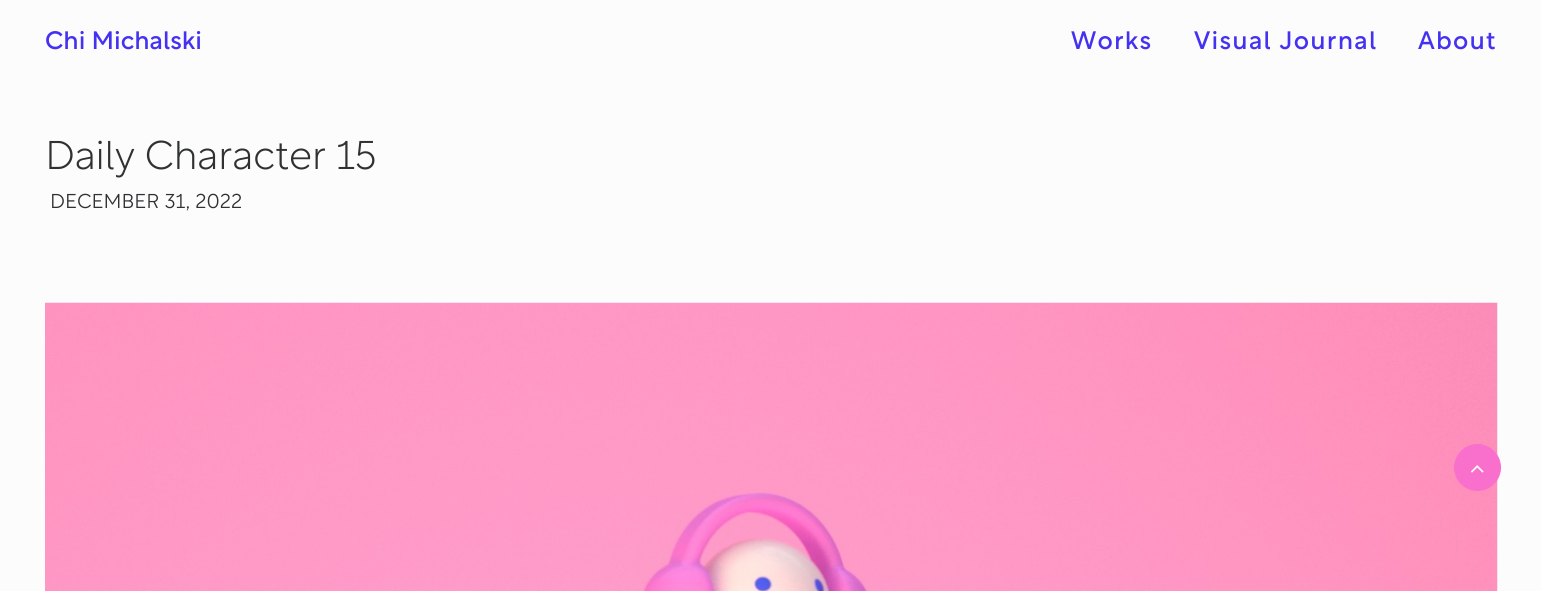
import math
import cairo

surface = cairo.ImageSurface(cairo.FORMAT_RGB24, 1541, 591)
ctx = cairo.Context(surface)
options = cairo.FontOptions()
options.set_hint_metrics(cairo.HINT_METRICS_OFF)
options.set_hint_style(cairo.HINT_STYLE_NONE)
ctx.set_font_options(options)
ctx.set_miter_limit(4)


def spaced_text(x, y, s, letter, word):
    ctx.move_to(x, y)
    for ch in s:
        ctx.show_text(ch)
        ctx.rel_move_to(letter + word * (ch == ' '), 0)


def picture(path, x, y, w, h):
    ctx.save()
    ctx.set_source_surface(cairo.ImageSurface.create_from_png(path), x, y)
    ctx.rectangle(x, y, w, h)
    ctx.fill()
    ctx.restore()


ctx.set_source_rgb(0.988, 0.988, 0.988)
ctx.paint()
ctx.select_font_face("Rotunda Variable")
ctx.set_font_size(25)
ctx.set_source_rgb(0.267, 0.192, 0.945)
ctx.move_to(45, 49)
ctx.show_text("Chi Michalski")
spaced_text(1071, 49, "Works", 1.25, 0)
spaced_text(1194, 49, "Visual Journal", 1.25, 0)
spaced_text(1418, 49, "About", 1.25, 0)
ctx.select_font_face("Rotunda Variable ExtraLight")
ctx.set_font_size(40)
ctx.set_source_rgb(0.188, 0.192, 0.2)
spaced_text(45, 169, "Daily Character 15", -0.6, 0)
ctx.select_font_face("Rotunda Variable Light")
ctx.set_font_size(20)
ctx.move_to(50, 208)
ctx.show_text("DECEMBER 31, 2022")
picture("img1.png", 45, 302, 1453, 289)
ctx.set_source_rgb(0.976, 0.439, 0.8)
ctx.arc(1477.5, 467.5, 23, 0, 2 * math.pi)
ctx.fill_preserve()
ctx.set_line_width(1)
ctx.stroke()
picture("img2.png", 1471, 465, 13, 8)
surface.write_to_png("page.png")
